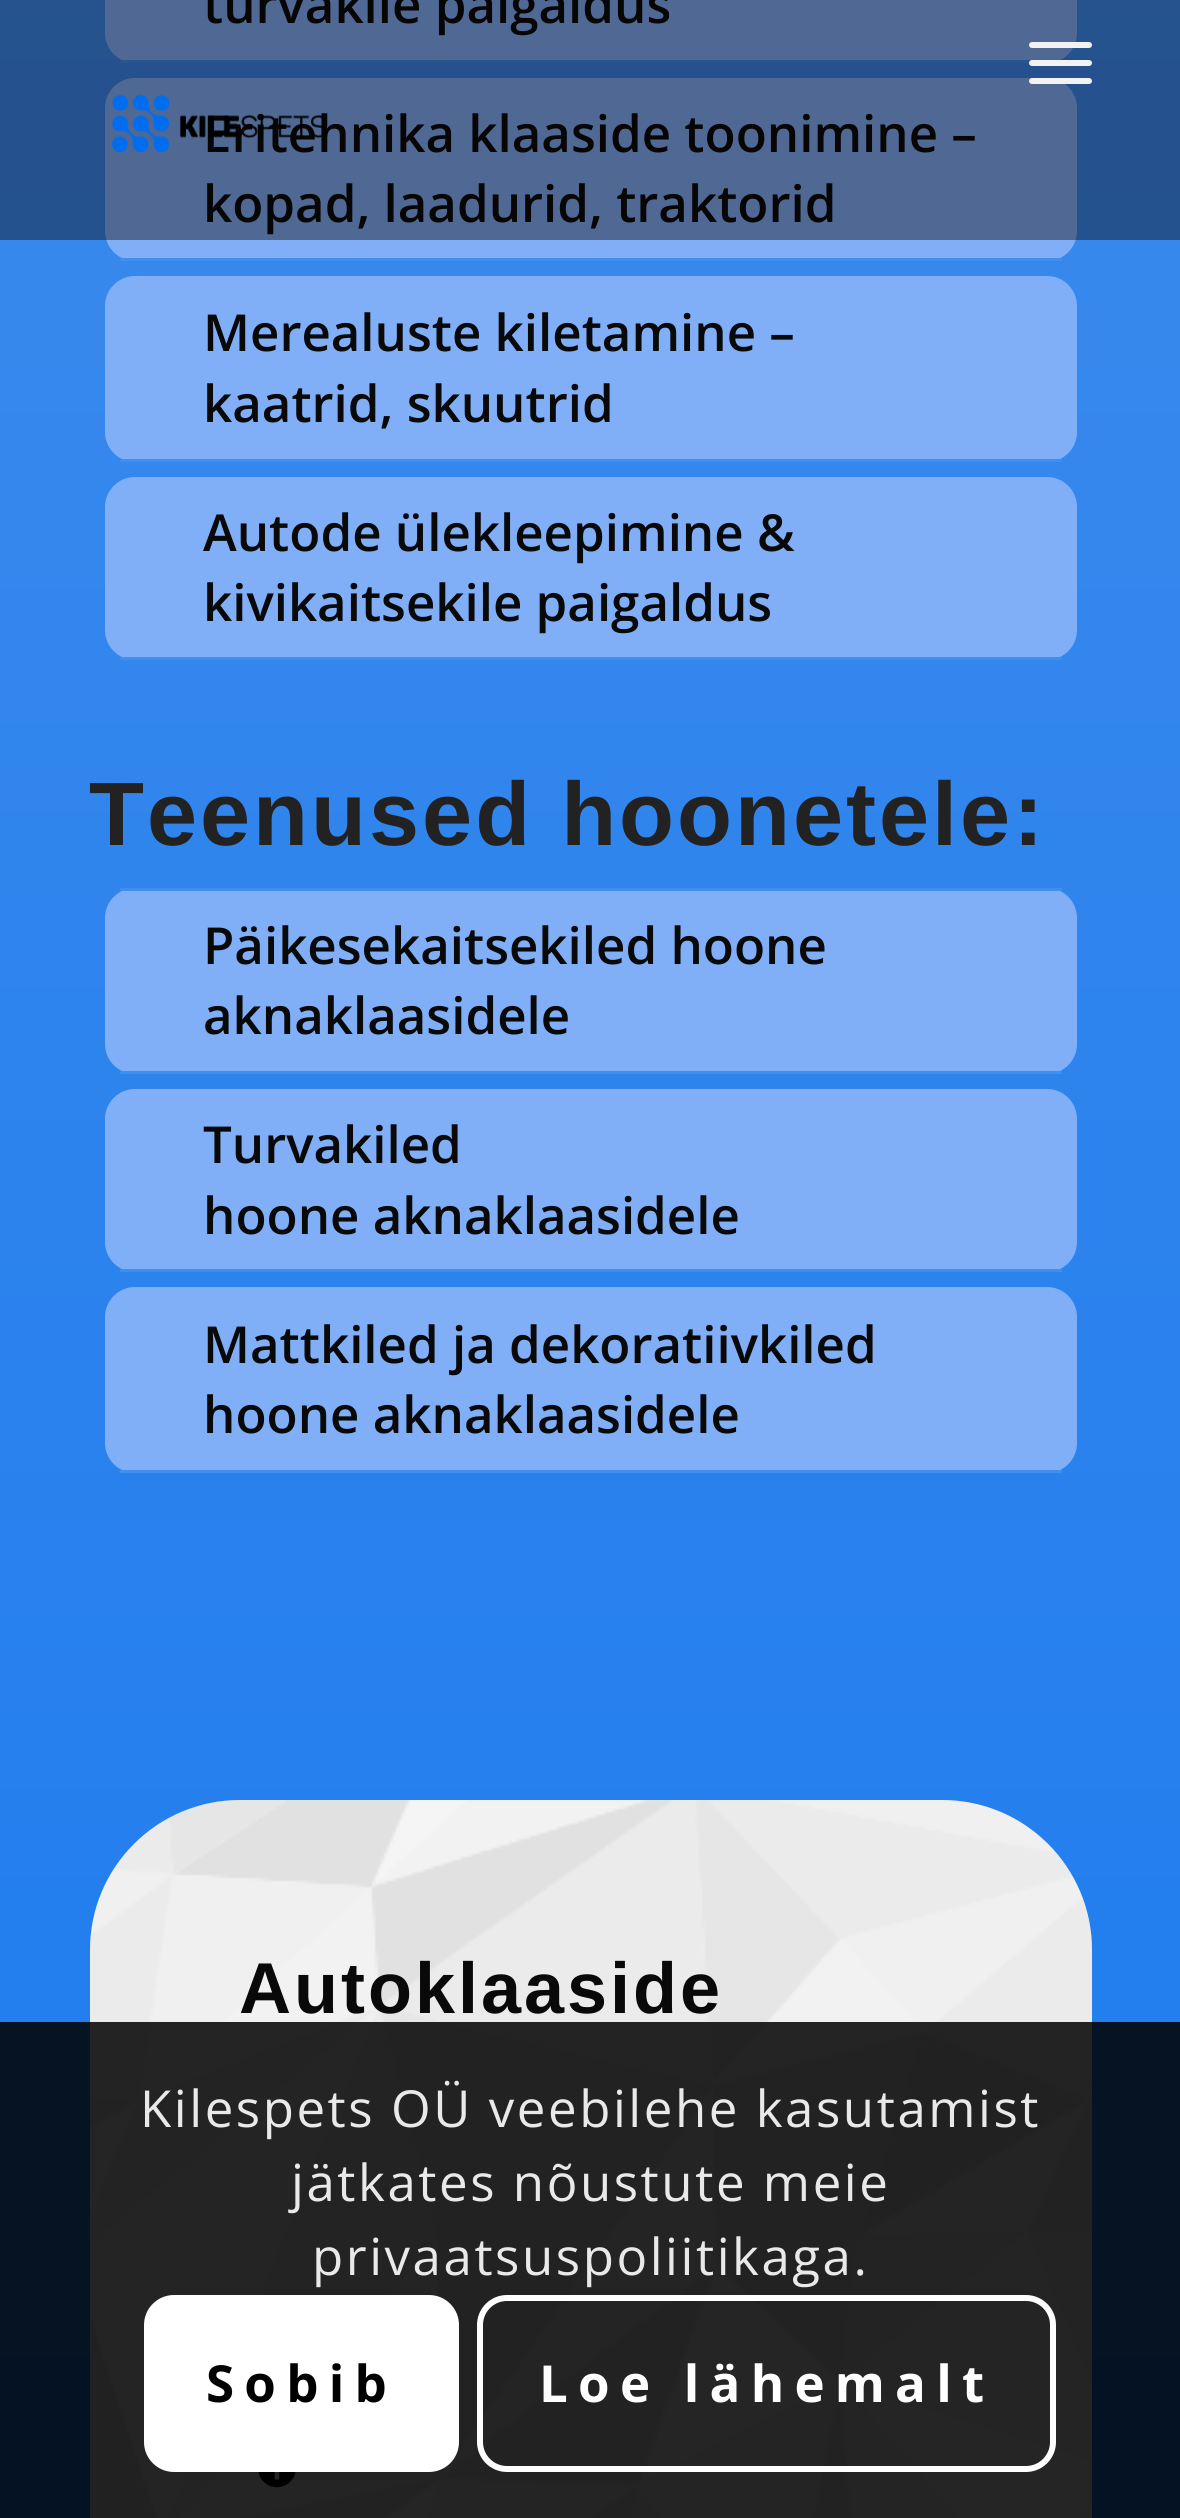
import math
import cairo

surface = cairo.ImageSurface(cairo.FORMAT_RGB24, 1180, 2518)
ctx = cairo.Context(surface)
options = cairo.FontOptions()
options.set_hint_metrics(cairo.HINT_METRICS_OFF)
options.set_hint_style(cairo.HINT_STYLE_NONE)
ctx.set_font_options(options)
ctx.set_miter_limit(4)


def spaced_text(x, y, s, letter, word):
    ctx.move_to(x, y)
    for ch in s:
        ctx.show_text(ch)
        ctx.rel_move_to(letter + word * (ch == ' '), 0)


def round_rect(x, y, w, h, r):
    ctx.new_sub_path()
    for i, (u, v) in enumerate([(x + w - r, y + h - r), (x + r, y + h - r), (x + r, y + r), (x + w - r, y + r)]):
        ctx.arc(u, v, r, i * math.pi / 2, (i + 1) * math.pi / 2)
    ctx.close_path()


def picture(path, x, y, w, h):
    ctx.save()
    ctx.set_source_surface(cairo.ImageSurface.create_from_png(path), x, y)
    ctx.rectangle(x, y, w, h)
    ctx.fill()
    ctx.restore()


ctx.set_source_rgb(1, 1, 1)
ctx.paint()
gradient = cairo.LinearGradient(591, -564, 591, 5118)
gradient.add_color_stop_rgba(0, 0.251, 0.553, 0.929, 1)
gradient.add_color_stop_rgba(1, 0, 0.427, 0.937, 1)
ctx.set_source(gradient)
ctx.rectangle(0, 0, 1180, 2518)
ctx.fill()
ctx.set_source_rgb(0.502, 0.686, 0.965)
round_rect(105, -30, 972, 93, 30)
ctx.fill()
ctx.set_source_rgb(0.251, 0.557, 0.929)
ctx.rectangle(120, 60, 912, 3)
ctx.fill()
ctx.select_font_face("Open Sans SemiBold")
ctx.set_font_size(51)
ctx.set_source_rgb(0.039, 0.039, 0.039)
ctx.move_to(203, 23)
ctx.show_text("turvakile paigaldus")
ctx.set_source_rgb(0.502, 0.686, 0.965)
round_rect(105, 78, 972, 183, 30)
ctx.fill()
ctx.set_source_rgb(0.039, 0.039, 0.039)
ctx.move_to(203, 152)
ctx.show_text("Eritehnika klaaside toonimine –")
ctx.move_to(203, 222)
ctx.show_text("kopad, laadurid, traktorid")
ctx.set_source_rgba(0.039, 0, 0, 0.4)
ctx.rectangle(0, 0, 1180, 240)
ctx.fill()
ctx.set_source_rgb(0.949, 0.949, 0.949)
round_rect(1029, 60, 63, 6, 3)
ctx.fill()
round_rect(1029, 42, 63, 6, 3)
ctx.fill()
round_rect(1029, 78, 63, 6, 3)
ctx.fill()
picture("img1.png", 112, 94, 215, 59)
ctx.set_source_rgb(0.251, 0.557, 0.929)
ctx.rectangle(120, 258, 942, 3)
ctx.fill()
ctx.set_source_rgb(0.502, 0.686, 0.965)
round_rect(105, 276, 972, 186, 30)
ctx.fill()
ctx.set_source_rgb(0.251, 0.557, 0.929)
ctx.rectangle(120, 459, 942, 3)
ctx.fill()
ctx.set_source_rgb(0.039, 0.039, 0.039)
ctx.move_to(203, 351)
ctx.show_text("Merealuste kiletamine –")
ctx.move_to(203, 422)
ctx.show_text("kaatrid, skuutrid")
ctx.set_source_rgb(0.502, 0.686, 0.965)
round_rect(105, 477, 972, 183, 30)
ctx.fill()
ctx.set_source_rgb(0.251, 0.557, 0.929)
ctx.rectangle(120, 657, 942, 3)
ctx.fill()
ctx.set_source_rgb(0.039, 0.039, 0.039)
ctx.move_to(203, 551)
ctx.show_text("Autode ülekleepimine &")
ctx.move_to(203, 621)
ctx.show_text("kivikaitsekile paigaldus")
ctx.select_font_face("Liberation Sans", cairo.FONT_SLANT_NORMAL, cairo.FONT_WEIGHT_BOLD)
ctx.set_font_size(90)
ctx.set_source_rgb(0.133, 0.133, 0.133)
spaced_text(89, 845, "Teenused hoonetele:", 3, 0)
ctx.set_source_rgb(0.502, 0.686, 0.965)
round_rect(105, 888, 972, 186, 30)
ctx.fill()
ctx.set_source_rgb(0.251, 0.557, 0.929)
ctx.rectangle(120, 888, 942, 3)
ctx.fill()
ctx.rectangle(120, 1071, 942, 3)
ctx.fill()
ctx.select_font_face("Open Sans SemiBold")
ctx.set_font_size(51)
ctx.set_source_rgb(0.039, 0.039, 0.039)
ctx.move_to(203, 964)
ctx.show_text("Päikesekaitsekiled hoone")
ctx.move_to(203, 1034)
ctx.show_text("aknaklaasidele")
ctx.set_source_rgb(0.502, 0.686, 0.965)
round_rect(105, 1089, 972, 183, 30)
ctx.fill()
ctx.set_source_rgb(0.251, 0.557, 0.929)
ctx.rectangle(120, 1269, 942, 3)
ctx.fill()
ctx.set_source_rgb(0.039, 0.039, 0.039)
ctx.move_to(203, 1163)
ctx.show_text("Turvakiled")
ctx.move_to(203, 1234)
ctx.show_text("hoone aknaklaasidele")
ctx.set_source_rgb(0.502, 0.686, 0.965)
round_rect(105, 1287, 972, 186, 30)
ctx.fill()
ctx.set_source_rgb(0.251, 0.557, 0.929)
ctx.rectangle(120, 1470, 942, 3)
ctx.fill()
ctx.set_source_rgb(0.039, 0.039, 0.039)
ctx.move_to(203, 1363)
ctx.show_text("Mattkiled ja dekoratiivkiled")
ctx.move_to(203, 1433)
ctx.show_text("hoone aknaklaasidele")
ctx.set_source_rgb(0.949, 0.949, 0.949)
round_rect(90, 1800, 1002, 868, 150)
ctx.fill()
picture("img2.png", 90, 1800, 1002, 718)
ctx.select_font_face("Liberation Sans", cairo.FONT_SLANT_NORMAL, cairo.FONT_WEIGHT_BOLD)
ctx.set_font_size(72)
ctx.set_source_rgb(0.039, 0.039, 0.039)
spaced_text(239, 2013, "Autoklaaside", 3, 0)
picture("img3.png", 258, 2472, 38, 16)
ctx.set_source_rgba(0, 0, 0, 0.85)
ctx.rectangle(0, 2022, 1180, 496)
ctx.fill()
ctx.select_font_face("Open Sans")
ctx.set_font_size(51)
ctx.set_source_rgb(0.914, 0.914, 0.914)
spaced_text(140, 2127, "Kilespets OÜ veebilehe kasutamist", 2.55, 0)
spaced_text(291, 2201, "jätkates nõustute meie", 2.55, 0)
spaced_text(312, 2275, "privaatsuspoliitikaga.", 2.55, 0)
ctx.set_source_rgb(1, 1, 1)
round_rect(144, 2295, 315, 177, 30)
ctx.fill()
ctx.select_font_face("Open Sans", cairo.FONT_SLANT_NORMAL, cairo.FONT_WEIGHT_BOLD)
ctx.set_source_rgb(0, 0, 0)
spaced_text(206, 2402, "Sobib", 10.25, 0)
round_rect(480, 2298, 573, 171, 27)
ctx.set_source_rgb(1, 1, 1)
ctx.set_line_width(6)
ctx.stroke()
spaced_text(539, 2402, "Loe lähemalt", 10.25, 0)
surface.write_to_png("page.png")
